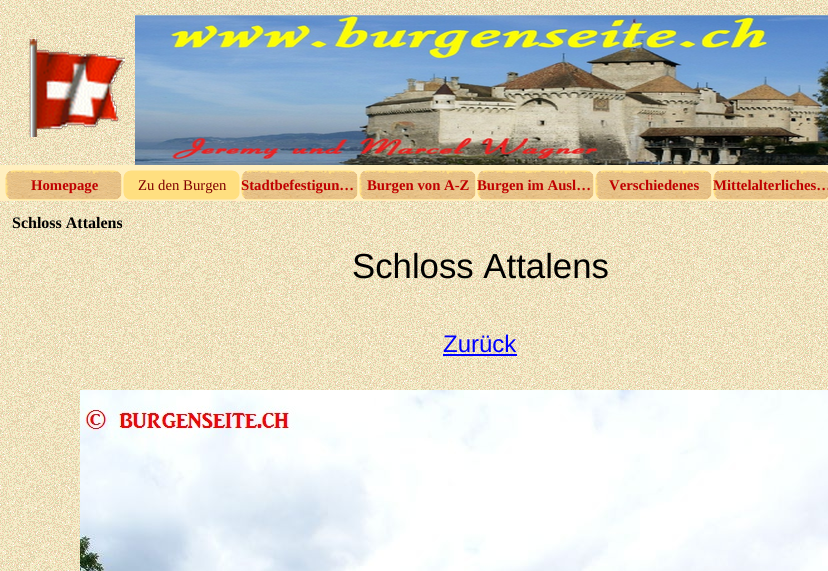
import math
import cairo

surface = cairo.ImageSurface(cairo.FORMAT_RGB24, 828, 571)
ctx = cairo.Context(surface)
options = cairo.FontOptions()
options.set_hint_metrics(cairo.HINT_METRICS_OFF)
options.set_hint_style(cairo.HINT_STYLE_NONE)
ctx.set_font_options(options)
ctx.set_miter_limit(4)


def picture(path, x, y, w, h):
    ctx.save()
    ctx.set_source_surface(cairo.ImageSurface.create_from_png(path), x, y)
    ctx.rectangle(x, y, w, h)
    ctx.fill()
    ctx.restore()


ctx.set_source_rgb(1, 1, 1)
ctx.paint()
picture("img1.png", 0, 0, 828, 571)
picture("img2.png", 29, 15, 799, 150)
ctx.set_source_rgb(1, 0.937, 0.749)
ctx.rectangle(0, 165, 828, 36)
ctx.fill()
picture("img3.png", 5, 170, 117, 30)
ctx.select_font_face("Liberation Serif", cairo.FONT_SLANT_NORMAL, cairo.FONT_WEIGHT_BOLD)
ctx.set_font_size(14.75)
ctx.set_source_rgb(0.753, 0, 0)
ctx.move_to(31, 190)
ctx.show_text("Homepage")
picture("img4.png", 123, 170, 117, 30)
ctx.select_font_face("Liberation Serif")
ctx.set_source_rgb(0.502, 0, 0)
ctx.move_to(138, 190)
ctx.show_text("Zu den Burgen")
picture("img3.png", 241, 170, 117, 30)
ctx.select_font_face("Liberation Serif", cairo.FONT_SLANT_NORMAL, cairo.FONT_WEIGHT_BOLD)
ctx.set_source_rgb(0.753, 0, 0)
ctx.move_to(241, 190)
ctx.show_text("Stadtbefestigun…")
picture("img3.png", 359, 170, 117, 30)
ctx.move_to(367, 190)
ctx.show_text("Burgen von A-Z")
picture("img3.png", 477, 170, 117, 30)
ctx.move_to(477, 190)
ctx.show_text("Burgen im Ausl…")
picture("img3.png", 595, 170, 117, 30)
ctx.move_to(609, 190)
ctx.show_text("Verschiedenes")
picture("img5.png", 713, 170, 115, 30)
ctx.move_to(713, 190)
ctx.show_text("Mittelalterliches…")
ctx.set_font_size(16)
ctx.set_source_rgb(0, 0, 0)
ctx.move_to(12, 228)
ctx.show_text("Schloss Attalens")
ctx.select_font_face("Liberation Sans")
ctx.set_font_size(34.75)
ctx.move_to(352, 278)
ctx.show_text("Schloss Attalens")
ctx.set_font_size(24)
ctx.set_source_rgb(0, 0, 1)
ctx.move_to(443, 352)
ctx.show_text("Zurück")
ctx.rectangle(443, 354, 74, 2)
ctx.fill()
picture("img6.png", 80, 390, 748, 181)
surface.write_to_png("page.png")
